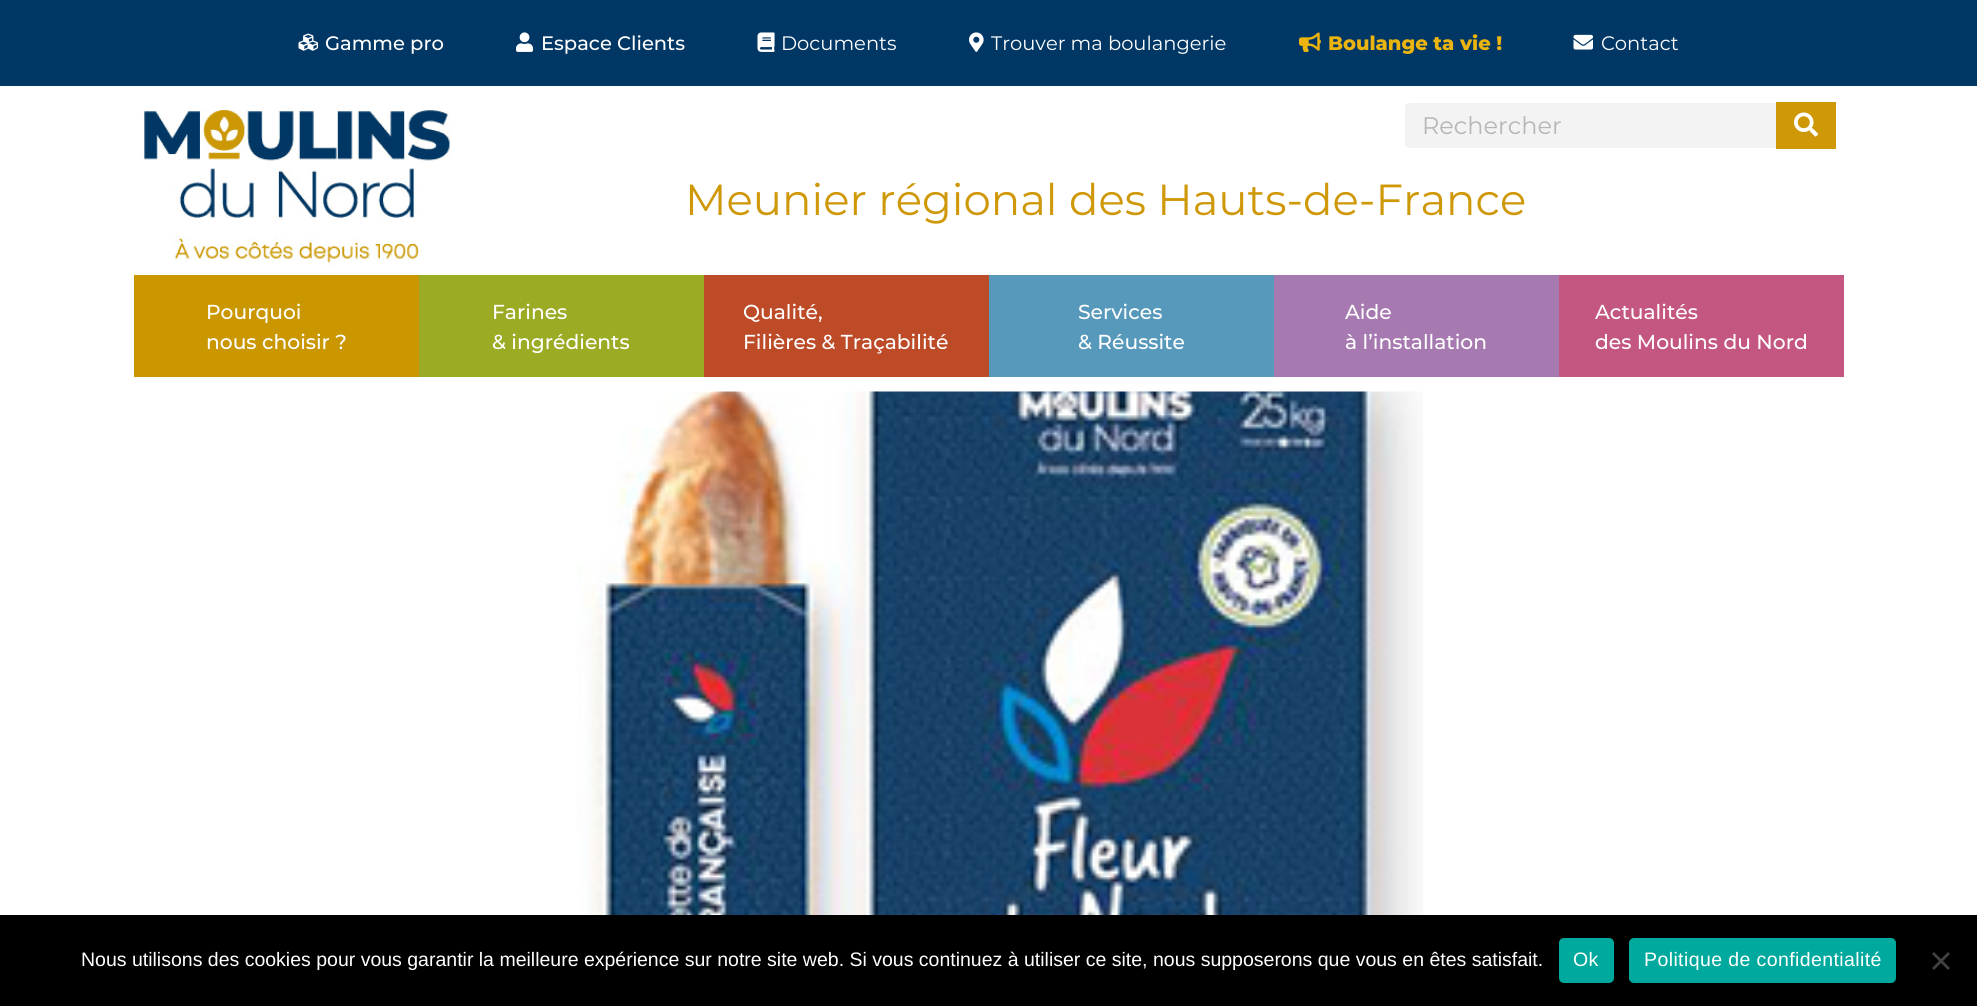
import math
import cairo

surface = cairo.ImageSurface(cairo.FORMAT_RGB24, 1977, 1006)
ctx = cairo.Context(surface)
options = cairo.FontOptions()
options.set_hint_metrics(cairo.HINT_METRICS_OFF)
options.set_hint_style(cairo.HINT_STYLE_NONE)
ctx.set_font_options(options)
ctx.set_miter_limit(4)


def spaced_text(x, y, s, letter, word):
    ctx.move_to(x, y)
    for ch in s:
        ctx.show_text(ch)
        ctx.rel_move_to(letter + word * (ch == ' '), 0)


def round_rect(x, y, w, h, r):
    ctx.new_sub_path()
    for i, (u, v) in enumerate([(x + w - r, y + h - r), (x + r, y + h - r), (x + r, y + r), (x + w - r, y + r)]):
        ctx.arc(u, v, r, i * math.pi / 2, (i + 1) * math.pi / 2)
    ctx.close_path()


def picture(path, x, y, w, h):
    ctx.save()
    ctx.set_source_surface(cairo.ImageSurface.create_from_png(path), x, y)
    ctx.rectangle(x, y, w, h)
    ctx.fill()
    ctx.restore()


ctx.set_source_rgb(1, 1, 1)
ctx.paint()
ctx.set_source_rgb(0.004, 0.216, 0.396)
ctx.rectangle(0, 0, 1977, 86)
ctx.fill()
picture("img1.png", 298, 33, 20, 18)
ctx.select_font_face("Montserrat Medium")
ctx.set_font_size(19.5)
ctx.set_source_rgb(1, 1, 1)
ctx.move_to(325, 50)
ctx.show_text("Gamme pro")
picture("img2.png", 516, 32, 18, 20)
ctx.move_to(541, 50)
ctx.show_text("Espace Clients")
picture("img3.png", 757, 32, 18, 20)
ctx.select_font_face("Montserrat")
ctx.move_to(781, 50)
ctx.show_text("Documents")
picture("img4.png", 969, 32, 15, 20)
ctx.move_to(991, 50)
ctx.show_text("Trouver ma boulangerie")
picture("img5.png", 1299, 32, 22, 20)
ctx.select_font_face("Montserrat ExtraBold")
ctx.set_source_rgb(0.925, 0.706, 0.055)
ctx.move_to(1328, 50)
ctx.show_text("Boulange ta vie !")
picture("img6.png", 1573, 34, 20, 16)
ctx.select_font_face("Montserrat")
ctx.set_source_rgb(1, 1, 1)
ctx.move_to(1601, 50)
ctx.show_text("Contact")
picture("img7.png", 142, 110, 309, 157)
ctx.set_source_rgb(0.953, 0.953, 0.953)
round_rect(1404, 102, 433, 47, 5)
ctx.fill_preserve()
ctx.set_source_rgb(1, 1, 1)
ctx.stroke()
ctx.set_font_size(24)
ctx.set_source_rgb(0.714, 0.714, 0.714)
ctx.move_to(1422, 134)
ctx.show_text("Rechercher")
ctx.set_source_rgb(0.812, 0.596, 0.039)
ctx.rectangle(1776, 102, 60, 47)
ctx.fill()
picture("img8.png", 1794, 112, 24, 25)
ctx.set_font_size(43.5)
ctx.move_to(685, 215)
ctx.show_text("Meunier régional des Hauts-de-France")
ctx.set_source_rgb(0.792, 0.592, 0)
ctx.rectangle(134, 275, 285, 102)
ctx.fill()
ctx.select_font_face("Montserrat Medium")
ctx.set_font_size(20.25)
ctx.set_source_rgb(1, 1, 1)
ctx.move_to(206, 319)
ctx.show_text("Pourquoi")
ctx.move_to(206, 349)
ctx.show_text("nous choisir ?")
ctx.set_source_rgb(0.608, 0.671, 0.141)
ctx.rectangle(419, 275, 285, 102)
ctx.fill()
ctx.set_source_rgb(1, 1, 1)
ctx.move_to(492, 319)
ctx.show_text("Farines")
ctx.move_to(492, 349)
ctx.show_text("& ingrédients")
ctx.set_source_rgb(0.741, 0.294, 0.153)
ctx.rectangle(704, 275, 285, 102)
ctx.fill()
ctx.set_source_rgb(1, 1, 1)
ctx.move_to(743, 319)
ctx.show_text("Qualité,")
ctx.move_to(743, 349)
ctx.show_text("Filières & Traçabilité")
ctx.set_source_rgb(0.341, 0.6, 0.733)
ctx.rectangle(989, 275, 285, 102)
ctx.fill()
ctx.set_source_rgb(1, 1, 1)
ctx.move_to(1078, 319)
ctx.show_text("Services")
ctx.move_to(1078, 349)
ctx.show_text("& Réussite")
ctx.set_source_rgb(0.651, 0.475, 0.69)
ctx.rectangle(1274, 275, 285, 102)
ctx.fill()
ctx.set_source_rgb(1, 1, 1)
ctx.move_to(1345, 319)
ctx.show_text("Aide")
ctx.move_to(1345, 349)
ctx.show_text("à l’installation")
ctx.set_source_rgb(0.769, 0.341, 0.506)
ctx.rectangle(1559, 275, 285, 102)
ctx.fill()
ctx.set_source_rgb(1, 1, 1)
ctx.move_to(1595, 319)
ctx.show_text("Actualités")
ctx.move_to(1595, 349)
ctx.show_text("des Moulins du Nord")
picture("img9.png", 577, 391, 846, 524)
ctx.set_source_rgb(0, 0, 0)
ctx.rectangle(0, 915, 1977, 91)
ctx.fill()
ctx.select_font_face("Liberation Sans")
ctx.set_font_size(19.5)
ctx.set_source_rgb(1, 1, 1)
ctx.move_to(81, 966)
ctx.show_text("Nous utilisons des cookies pour vous garantir la meilleure expérience sur notre site web. Si vous continuez à utiliser ce site, nous supposerons que vous en êtes satisfait.")
ctx.set_source_rgb(0, 0.663, 0.616)
round_rect(1559, 938, 55, 45, 5)
ctx.fill()
ctx.set_source_rgb(1, 1, 1)
spaced_text(1573, 966, "Ok", 0.4, 0)
ctx.set_source_rgb(0, 0.663, 0.616)
round_rect(1629, 938, 267, 45, 5)
ctx.fill()
ctx.set_source_rgb(1, 1, 1)
spaced_text(1644, 966, "Politique de confidentialité", 0.4, 0)
ctx.set_source_rgb(0.251, 0.251, 0.251)
ctx.new_path()
ctx.move_to(1948, 952)
ctx.line_to(1950, 954)
ctx.line_to(1934, 970)
ctx.line_to(1932, 968)
ctx.close_path()
ctx.fill()
ctx.new_path()
ctx.move_to(1932, 954)
ctx.line_to(1934, 952)
ctx.line_to(1950, 968)
ctx.line_to(1948, 970)
ctx.close_path()
ctx.fill()
surface.write_to_png("page.png")
